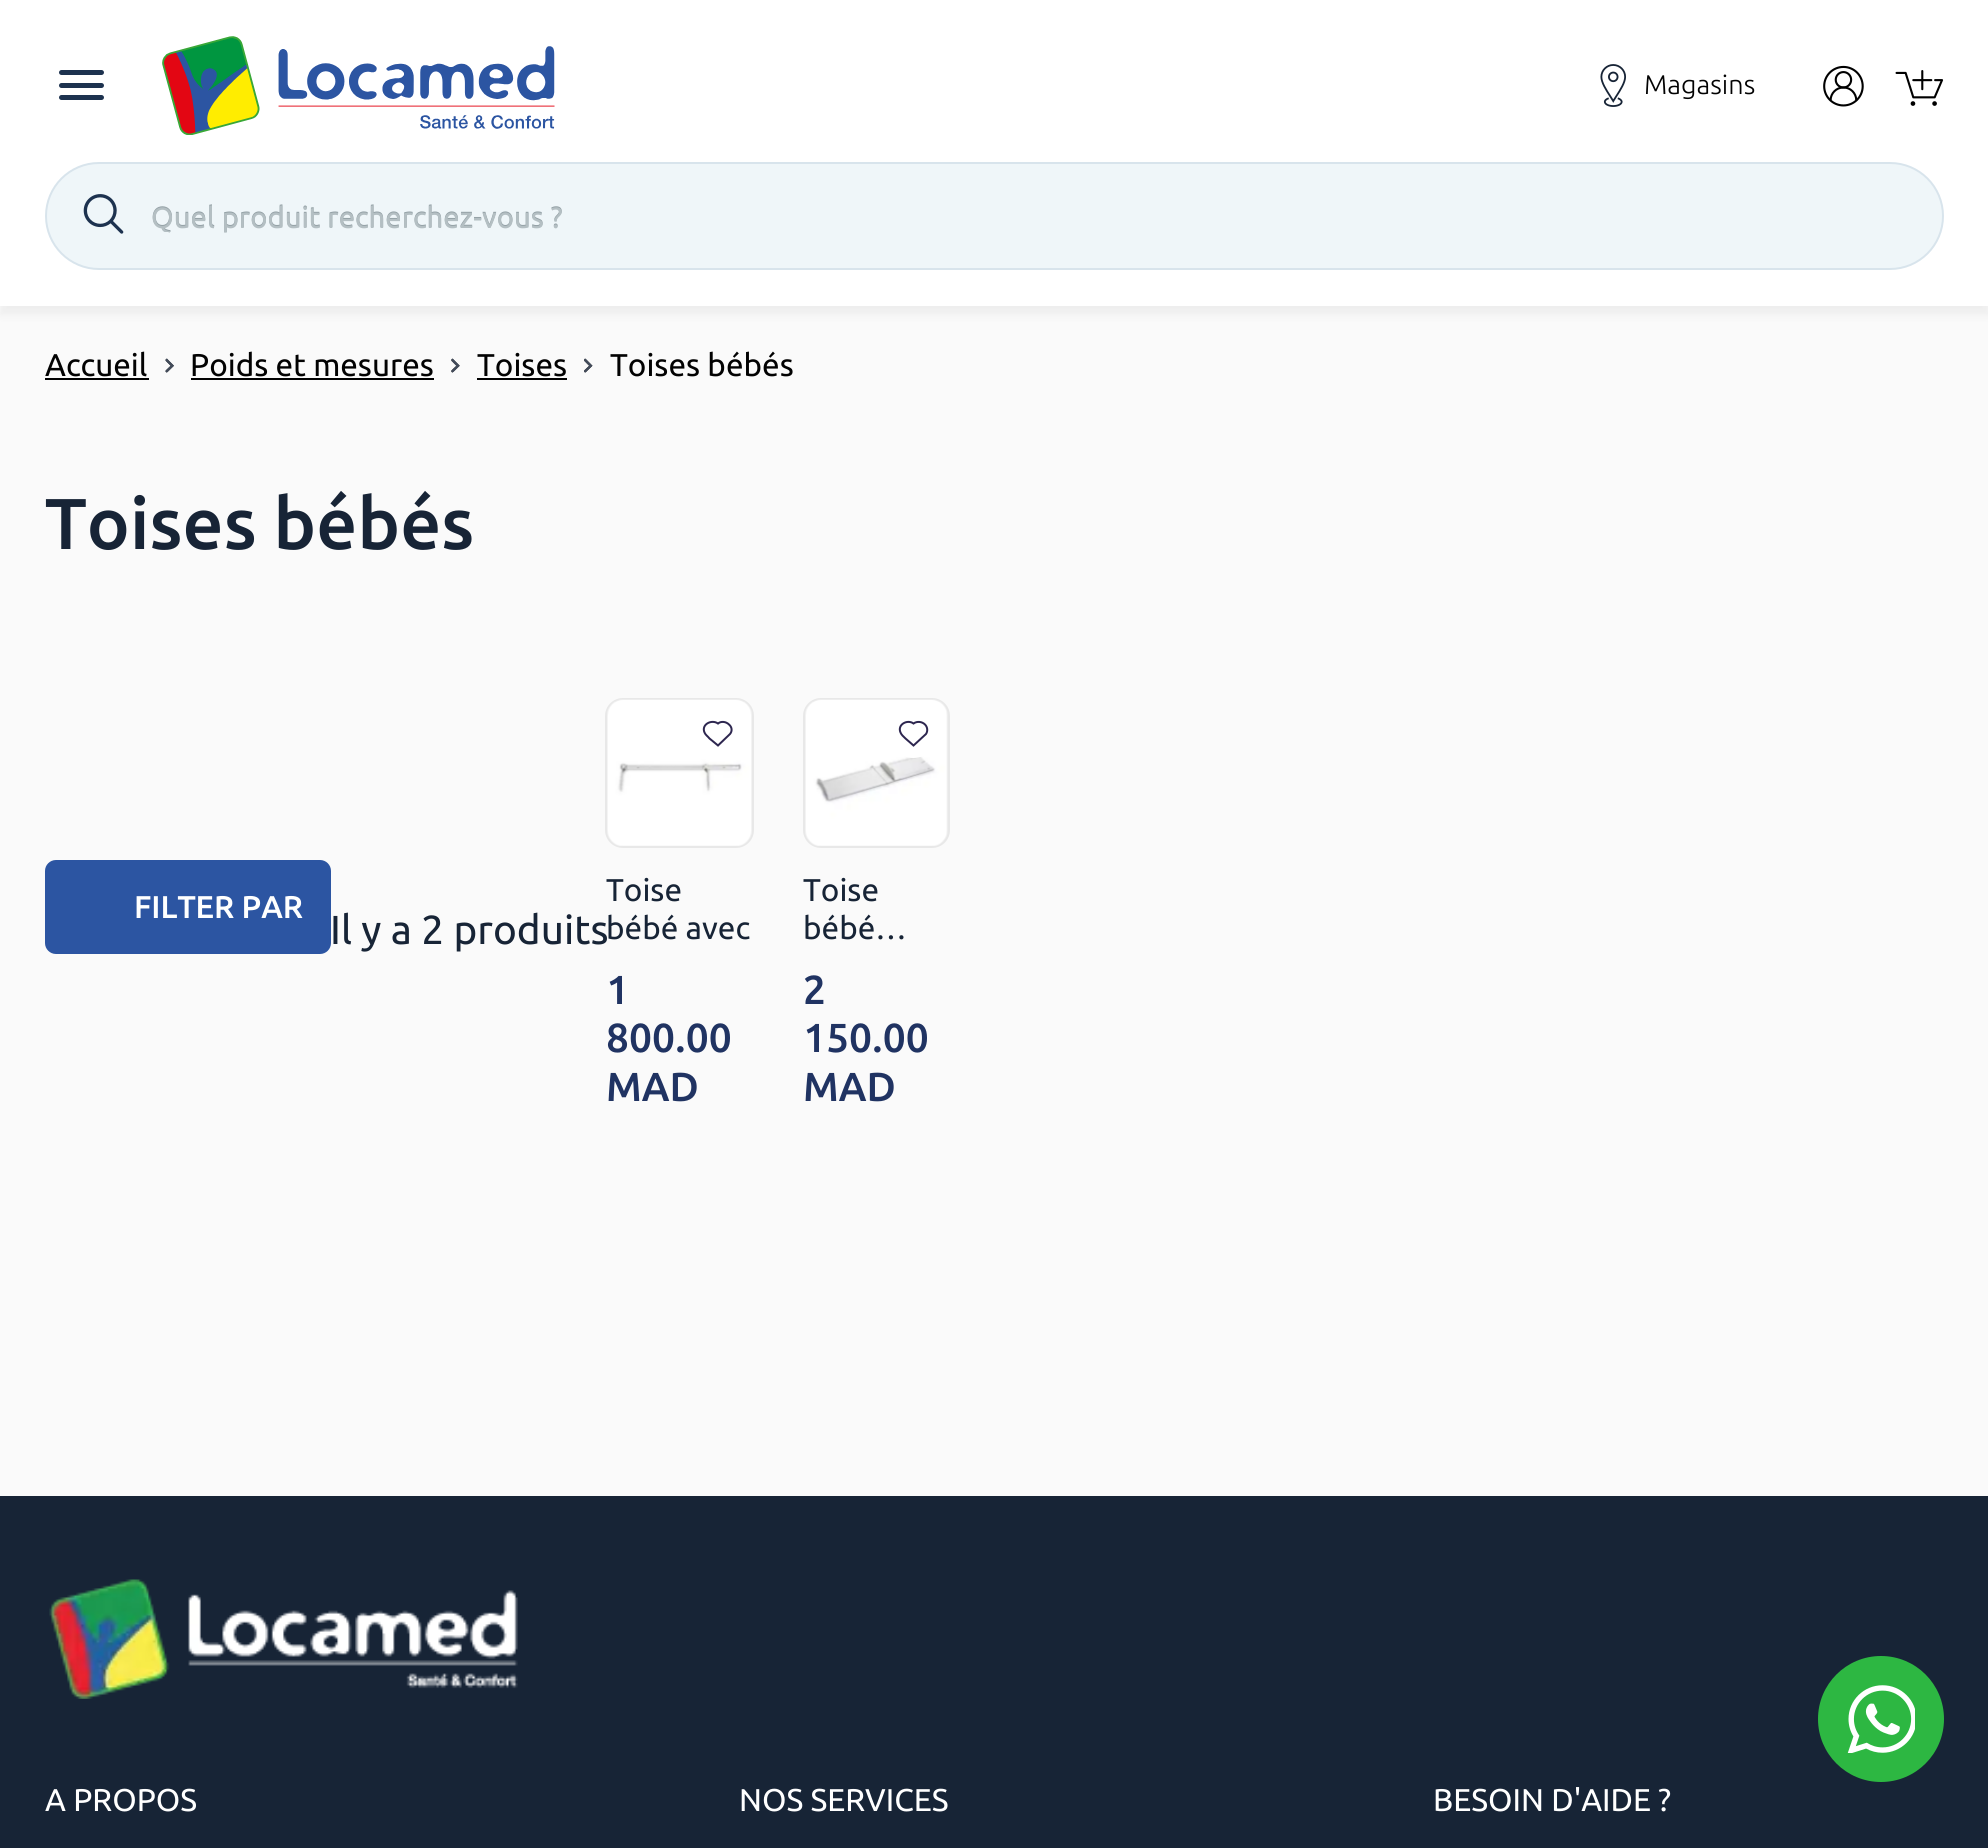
import math
import cairo

surface = cairo.ImageSurface(cairo.FORMAT_RGB24, 1988, 1848)
ctx = cairo.Context(surface)
options = cairo.FontOptions()
options.set_hint_metrics(cairo.HINT_METRICS_OFF)
options.set_hint_style(cairo.HINT_STYLE_NONE)
ctx.set_font_options(options)
ctx.set_miter_limit(4)


def round_rect(x, y, w, h, r):
    ctx.new_sub_path()
    for i, (u, v) in enumerate([(x + w - r, y + h - r), (x + r, y + h - r), (x + r, y + r), (x + w - r, y + r)]):
        ctx.arc(u, v, r, i * math.pi / 2, (i + 1) * math.pi / 2)
    ctx.close_path()


def shadow(x, y, w, h, r, blur, alpha):
    ctx.push_group_with_content(cairo.CONTENT_ALPHA)
    ctx.set_operator(cairo.OPERATOR_SOURCE)
    for i in range(15, -16, -2):
        e = blur * i / 6
        if min(w, h) + 2 * e > 0:
            ctx.set_source_rgba(0, 0, 0, alpha * math.erfc((i - 1) / 8.5) / 2)
            round_rect(x - e, y - e, w + 2 * e, h + 2 * e, max(0, min(r + e + blur * .6, min(w, h) / 2 + e)))
            ctx.fill()
    ctx.mask(ctx.pop_group())


def picture(path, x, y, w, h):
    ctx.save()
    ctx.set_source_surface(cairo.ImageSurface.create_from_png(path), x, y)
    ctx.rectangle(x, y, w, h)
    ctx.fill()
    ctx.restore()


ctx.set_source_rgb(0.98, 0.98, 0.98)
ctx.paint()
ctx.set_source_rgb(0, 0, 0)
shadow(0, 9, 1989, 306, 0, 4.5, 0.05)
ctx.set_source_rgb(1, 1, 1)
ctx.rectangle(0, 0, 1988, 306)
ctx.fill()
ctx.set_source_rgb(0.114, 0.196, 0.31)
round_rect(59, 70, 45, 5, 2.5)
ctx.fill()
round_rect(59, 83, 45, 5, 2.5)
ctx.fill()
round_rect(59, 95, 45, 5, 2.5)
ctx.fill()
picture("img1.png", 162, 36, 393, 99)
picture("img2.png", 1600, 64, 26, 43)
ctx.select_font_face("Ubuntu Light")
ctx.set_font_size(27)
ctx.set_source_rgb(0.008, 0.008, 0.008)
ctx.move_to(1644, 94)
ctx.show_text("Magasins")
picture("img3.png", 1823, 65, 41, 42)
picture("img4.png", 1895, 70, 49, 36)
ctx.set_source_rgb(0.937, 0.961, 0.973)
round_rect(46, 163, 1897, 106, 53)
ctx.fill_preserve()
ctx.set_source_rgb(0.847, 0.894, 0.922)
ctx.stroke()
picture("img5.png", 83, 194, 41, 40)
ctx.select_font_face("Ubuntu")
ctx.set_font_size(29.25)
ctx.set_source_rgb(0.58, 0.631, 0.651)
ctx.move_to(151, 227)
ctx.show_text("Quel produit recherchez-vous ?")
ctx.save()
ctx.rectangle(151, 200, 1759, 32)
ctx.clip()
ctx.set_source_rgb(0.706, 0.749, 0.765)
ctx.move_to(151, 228)
ctx.show_text("Quel produit recherchez-vous ?")
ctx.restore()
ctx.set_font_size(31.5)
ctx.set_source_rgb(0.008, 0.008, 0.008)
ctx.move_to(45, 376)
ctx.show_text("Accueil")
ctx.rectangle(45, 378, 104, 2)
ctx.fill()
picture("img6.png", 165, 358, 9, 15)
ctx.move_to(190, 376)
ctx.show_text("Poids et mesures")
ctx.rectangle(191, 378, 243, 2)
ctx.fill()
picture("img7.png", 451, 358, 9, 15)
ctx.move_to(477, 376)
ctx.show_text("Toises")
ctx.rectangle(477, 378, 90, 2)
ctx.fill()
picture("img8.png", 584, 358, 9, 15)
ctx.move_to(610, 376)
ctx.show_text("Toises bébés")
ctx.select_font_face("Ubuntu Medium")
ctx.set_font_size(72)
ctx.set_source_rgb(0.09, 0.141, 0.212)
ctx.move_to(45, 549)
ctx.show_text("Toises bébés")
ctx.set_source_rgb(0.173, 0.333, 0.635)
round_rect(45, 860, 286, 94, 11)
ctx.fill()
ctx.set_font_size(31.5)
ctx.set_source_rgb(1, 1, 1)
ctx.move_to(134, 918)
ctx.show_text("FILTER PAR")
ctx.set_source_rgb(0.91, 0.91, 0.91)
round_rect(605, 698, 149, 150, 18)
ctx.fill()
picture("img9.png", 607, 699, 145, 147)
ctx.new_path()
ctx.move_to(729, 724.5)
ctx.curve_to(726, 721.5, 721, 721, 718, 723.5)
ctx.curve_to(711.5, 719, 701, 724.5, 704.5, 732.5)
ctx.curve_to(705.5, 735, 708, 736.5, 709.5, 738.5)
ctx.line_to(718, 745.5)
ctx.line_to(730, 734)
ctx.curve_to(732.5, 731, 732, 727, 729, 724.5)
ctx.close_path()
ctx.set_source_rgb(0.176, 0.149, 0.31)
ctx.stroke()
ctx.select_font_face("Ubuntu")
ctx.set_source_rgb(0.09, 0.141, 0.212)
ctx.move_to(606, 901)
ctx.show_text("Toise")
ctx.move_to(606, 939)
ctx.show_text("bébé avec")
ctx.select_font_face("Ubuntu Medium")
ctx.set_font_size(40.5)
ctx.set_source_rgb(0.125, 0.2, 0.384)
ctx.move_to(606, 1004)
ctx.show_text("1")
ctx.move_to(606, 1052)
ctx.show_text("800.00")
ctx.move_to(606, 1101)
ctx.show_text("MAD")
ctx.set_source_rgb(0.91, 0.91, 0.91)
round_rect(803, 698, 147, 150, 18)
ctx.fill()
picture("img10.png", 805, 699, 143, 147)
ctx.set_source_rgb(1, 1, 1)
ctx.arc(913.5, 733.5, 24.5, 0, 2 * math.pi)
ctx.fill()
ctx.new_path()
ctx.move_to(925, 724.5)
ctx.curve_to(922, 721.5, 917, 721, 913.5, 723.5)
ctx.curve_to(907.5, 719, 897, 724.5, 900.5, 732.5)
ctx.curve_to(901.5, 735, 903.5, 736.5, 905.5, 738.5)
ctx.line_to(913.5, 745.5)
ctx.line_to(926, 734)
ctx.curve_to(928, 731, 927.5, 727, 925, 724.5)
ctx.close_path()
ctx.set_source_rgb(0.176, 0.149, 0.31)
ctx.stroke()
ctx.select_font_face("Ubuntu")
ctx.set_font_size(31.5)
ctx.set_source_rgb(0.09, 0.141, 0.212)
ctx.move_to(803, 901)
ctx.show_text("Toise")
ctx.move_to(803, 939)
ctx.show_text("bébé…")
ctx.select_font_face("Ubuntu Medium")
ctx.set_font_size(40.5)
ctx.set_source_rgb(0.125, 0.2, 0.384)
ctx.move_to(803, 1004)
ctx.show_text("2")
ctx.move_to(803, 1052)
ctx.show_text("150.00")
ctx.move_to(803, 1101)
ctx.show_text("MAD")
ctx.select_font_face("Ubuntu")
ctx.set_source_rgb(0.09, 0.141, 0.212)
ctx.move_to(330, 944)
ctx.show_text("Il y a 2 produits")
ctx.rectangle(0, 1496, 1988, 352)
ctx.fill()
ctx.set_source_rgb(0.176, 0.718, 0.259)
ctx.arc(1881, 1719, 63, 0, 2 * math.pi)
ctx.fill()
picture("img11.png", 1847, 1685, 68, 68)
picture("img12.png", 49, 1579, 469, 120)
ctx.set_font_size(31.5)
ctx.set_source_rgb(1, 1, 1)
ctx.move_to(45, 1811)
ctx.show_text("A PROPOS")
ctx.move_to(739, 1811)
ctx.show_text("NOS SERVICES")
ctx.move_to(1433, 1811)
ctx.show_text("BESOIN D'AIDE ?")
surface.write_to_png("page.png")
